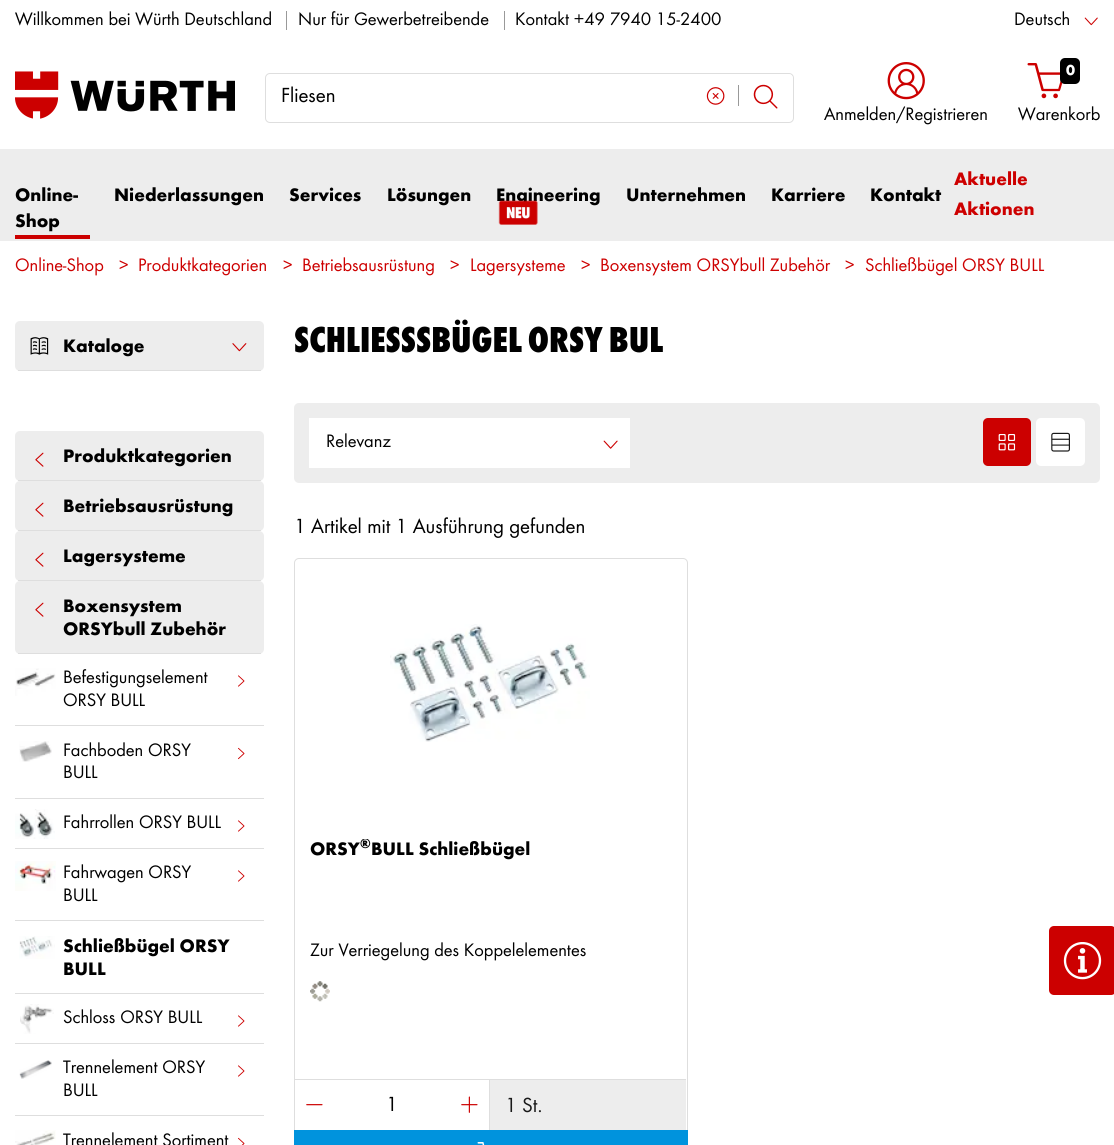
import math
import cairo

surface = cairo.ImageSurface(cairo.FORMAT_RGB24, 1114, 1145)
ctx = cairo.Context(surface)
options = cairo.FontOptions()
options.set_hint_metrics(cairo.HINT_METRICS_OFF)
options.set_hint_style(cairo.HINT_STYLE_NONE)
ctx.set_font_options(options)
ctx.set_miter_limit(4)


def spaced_text(x, y, s, letter, word):
    ctx.move_to(x, y)
    for ch in s:
        ctx.show_text(ch)
        ctx.rel_move_to(letter + word * (ch == ' '), 0)


def round_rect(x, y, w, h, r):
    ctx.new_sub_path()
    for i, (u, v) in enumerate([(x + w - r, y + h - r), (x + r, y + h - r), (x + r, y + r), (x + w - r, y + r)]):
        ctx.arc(u, v, r, i * math.pi / 2, (i + 1) * math.pi / 2)
    ctx.close_path()


def picture(path, x, y, w, h):
    ctx.save()
    ctx.set_source_surface(cairo.ImageSurface.create_from_png(path), x, y)
    ctx.rectangle(x, y, w, h)
    ctx.fill()
    ctx.restore()


ctx.set_source_rgb(1, 1, 1)
ctx.paint()
ctx.select_font_face("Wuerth")
ctx.set_font_size(18.75)
ctx.set_source_rgb(0, 0, 0)
ctx.move_to(15, 25)
ctx.show_text("Willkommen bei Würth Deutschland")
ctx.set_source_rgb(0.6, 0.6, 0.6)
ctx.rectangle(286, 11, 1, 19)
ctx.fill()
ctx.set_source_rgb(0, 0, 0)
ctx.move_to(298, 25)
ctx.show_text("Nur für Gewerbetreibende")
ctx.set_source_rgb(0.6, 0.6, 0.6)
ctx.rectangle(504, 11, 1, 19)
ctx.fill()
ctx.set_source_rgb(0, 0, 0)
ctx.move_to(515, 25)
ctx.show_text("Kontakt +49 7940 15-2400")
ctx.move_to(1014, 25)
ctx.show_text("Deutsch")
picture("img1.png", 1084, 17, 14, 9)
picture("img2.png", 15, 71, 220, 48)
round_rect(265.5, 73.5, 528, 49, 4.5)
ctx.set_source_rgb(0.871, 0.871, 0.871)
ctx.set_line_width(1)
ctx.stroke()
ctx.set_font_size(21.25)
ctx.set_source_rgb(0, 0, 0)
ctx.move_to(281, 102)
ctx.show_text("Fliesen")
picture("img3.png", 706, 87, 19, 18)
ctx.set_source_rgb(0.6, 0.6, 0.6)
ctx.rectangle(738, 85, 1, 21)
ctx.fill()
ctx.set_source_rgb(1, 1, 1)
round_rect(739, 74, 54, 46, 5)
ctx.fill()
picture("img4.png", 753, 84, 25, 25)
picture("img5.png", 1027, 63, 36, 36)
ctx.set_source_rgb(0, 0, 0)
round_rect(1060, 58, 20, 26, 5)
ctx.fill()
ctx.select_font_face("Wuerth", cairo.FONT_SLANT_NORMAL, cairo.FONT_WEIGHT_BOLD)
ctx.set_font_size(15)
ctx.set_source_rgb(1, 1, 1)
ctx.move_to(1066, 75)
ctx.show_text("0")
ctx.select_font_face("Wuerth")
ctx.set_font_size(18.75)
ctx.set_source_rgb(0, 0, 0)
ctx.move_to(1018, 120)
ctx.show_text("Warenkorb")
picture("img6.png", 887, 62, 38, 38)
ctx.move_to(824, 120)
ctx.show_text("Anmelden/Registrieren")
ctx.set_source_rgb(0.929, 0.929, 0.929)
ctx.rectangle(0, 149, 1114, 92)
ctx.fill()
ctx.set_source_rgb(0.8, 0, 0)
ctx.rectangle(15, 235, 75, 4)
ctx.fill()
ctx.select_font_face("Wuerth", cairo.FONT_SLANT_NORMAL, cairo.FONT_WEIGHT_BOLD)
ctx.set_source_rgb(0, 0, 0)
ctx.move_to(15, 201)
ctx.show_text("Online-")
ctx.move_to(15, 227)
ctx.show_text("Shop")
ctx.move_to(114, 201)
ctx.show_text("Niederlassungen")
ctx.move_to(289, 201)
ctx.show_text("Services")
ctx.move_to(387, 201)
ctx.show_text("Lösungen")
ctx.move_to(496, 201)
ctx.show_text("Engineering")
picture("img7.png", 498, 200, 40, 25)
ctx.move_to(626, 201)
ctx.show_text("Unternehmen")
ctx.move_to(771, 201)
ctx.show_text("Karriere")
ctx.move_to(870, 201)
ctx.show_text("Kontakt")
ctx.set_source_rgb(0.804, 0, 0)
ctx.move_to(954, 185)
ctx.show_text("Aktuelle")
ctx.move_to(954, 215)
ctx.show_text("Aktionen")
ctx.select_font_face("Wuerth")
ctx.move_to(15, 271)
ctx.show_text("Online-Shop")
ctx.move_to(119, 271)
ctx.show_text(">")
ctx.move_to(138, 271)
ctx.show_text("Produktkategorien")
ctx.move_to(283, 271)
ctx.show_text(">")
ctx.move_to(302, 271)
ctx.show_text("Betriebsausrüstung")
ctx.move_to(450, 271)
ctx.show_text(">")
ctx.move_to(470, 271)
ctx.show_text("Lagersysteme")
ctx.move_to(581, 271)
ctx.show_text(">")
ctx.move_to(600, 271)
ctx.show_text("Boxensystem ORSYbull Zubehör")
ctx.move_to(845, 271)
ctx.show_text(">")
ctx.move_to(865, 271)
ctx.show_text("Schließbügel ORSY BULL")
ctx.set_source_rgb(0.929, 0.929, 0.929)
round_rect(15, 321, 249, 50, 5)
ctx.fill()
ctx.set_source_rgb(0.871, 0.871, 0.871)
ctx.rectangle(18, 370, 243, 1)
ctx.fill()
picture("img8.png", 30, 337, 19, 18)
ctx.select_font_face("Wuerth", cairo.FONT_SLANT_NORMAL, cairo.FONT_WEIGHT_BOLD)
ctx.set_source_rgb(0, 0, 0)
ctx.move_to(63, 352)
ctx.show_text("Kataloge")
picture("img9.png", 232, 343, 15, 9)
ctx.set_source_rgb(0.929, 0.929, 0.929)
round_rect(15, 431, 249, 50, 5)
ctx.fill()
ctx.set_source_rgb(0.871, 0.871, 0.871)
ctx.rectangle(18, 480, 243, 1)
ctx.fill()
picture("img10.png", 35, 452, 9, 15)
ctx.set_source_rgb(0, 0, 0)
ctx.move_to(63, 462)
ctx.show_text("Produktkategorien")
ctx.set_source_rgb(0.929, 0.929, 0.929)
round_rect(15, 481, 249, 50, 5)
ctx.fill()
ctx.set_source_rgb(0.871, 0.871, 0.871)
ctx.rectangle(18, 530, 243, 1)
ctx.fill()
picture("img10.png", 35, 502, 9, 15)
ctx.set_source_rgb(0, 0, 0)
ctx.move_to(63, 512)
ctx.show_text("Betriebsausrüstung")
ctx.set_source_rgb(0.929, 0.929, 0.929)
round_rect(15, 531, 249, 50, 5)
ctx.fill()
ctx.set_source_rgb(0.871, 0.871, 0.871)
ctx.rectangle(18, 580, 243, 1)
ctx.fill()
picture("img10.png", 35, 552, 9, 15)
ctx.set_source_rgb(0, 0, 0)
ctx.move_to(63, 562)
ctx.show_text("Lagersysteme")
ctx.set_source_rgb(0.929, 0.929, 0.929)
round_rect(15, 581, 249, 73, 5)
ctx.fill()
ctx.set_source_rgb(0.871, 0.871, 0.871)
ctx.rectangle(18, 653, 243, 1)
ctx.fill()
picture("img10.png", 35, 602, 9, 15)
ctx.set_source_rgb(0, 0, 0)
ctx.move_to(63, 612)
ctx.show_text("Boxensystem")
ctx.move_to(63, 635)
ctx.show_text("ORSYbull Zubehör")
ctx.set_source_rgb(0.871, 0.871, 0.871)
ctx.rectangle(15, 725, 249, 1)
ctx.fill()
picture("img11.png", 15, 668, 41, 28)
ctx.select_font_face("Wuerth")
ctx.set_source_rgb(0, 0, 0)
ctx.move_to(63, 683)
ctx.show_text("Befestigungselement")
picture("img12.png", 238, 675, 7, 12)
ctx.move_to(63, 706)
ctx.show_text("ORSY BULL")
ctx.set_source_rgb(0.871, 0.871, 0.871)
ctx.rectangle(15, 798, 249, 1)
ctx.fill()
picture("img13.png", 19, 741, 33, 21)
ctx.set_source_rgb(0, 0, 0)
ctx.move_to(63, 756)
ctx.show_text("Fachboden ORSY")
picture("img14.png", 238, 747, 7, 13)
ctx.move_to(63, 778)
ctx.show_text("BULL")
ctx.set_source_rgb(0.871, 0.871, 0.871)
ctx.rectangle(15, 848, 249, 1)
ctx.fill()
picture("img15.png", 15, 809, 40, 30)
ctx.set_source_rgb(0, 0, 0)
ctx.move_to(63, 828)
ctx.show_text("Fahrrollen ORSY BULL")
picture("img12.png", 238, 820, 7, 12)
ctx.set_source_rgb(0.871, 0.871, 0.871)
ctx.rectangle(15, 920, 249, 1)
ctx.fill()
picture("img16.png", 15, 861, 41, 30)
ctx.set_source_rgb(0, 0, 0)
ctx.move_to(63, 878)
ctx.show_text("Fahrwagen ORSY")
picture("img12.png", 238, 870, 7, 12)
ctx.move_to(63, 901)
ctx.show_text("BULL")
ctx.set_source_rgb(0.871, 0.871, 0.871)
ctx.rectangle(15, 993, 249, 1)
ctx.fill()
picture("img17.png", 19, 936, 36, 23)
ctx.select_font_face("Wuerth", cairo.FONT_SLANT_NORMAL, cairo.FONT_WEIGHT_BOLD)
ctx.set_source_rgb(0, 0, 0)
ctx.move_to(63, 952)
ctx.show_text("Schließbügel ORSY")
ctx.move_to(63, 975)
ctx.show_text("BULL")
ctx.set_source_rgb(0.871, 0.871, 0.871)
ctx.rectangle(15, 1043, 249, 1)
ctx.fill()
picture("img18.png", 20, 1004, 34, 30)
ctx.select_font_face("Wuerth")
ctx.set_source_rgb(0, 0, 0)
ctx.move_to(63, 1023)
ctx.show_text("Schloss ORSY BULL")
picture("img12.png", 238, 1015, 7, 12)
ctx.set_source_rgb(0.871, 0.871, 0.871)
ctx.rectangle(15, 1115, 249, 1)
ctx.fill()
picture("img19.png", 19, 1060, 33, 19)
ctx.set_source_rgb(0, 0, 0)
ctx.move_to(63, 1073)
ctx.show_text("Trennelement ORSY")
picture("img12.png", 238, 1065, 7, 12)
ctx.move_to(63, 1096)
ctx.show_text("BULL")
picture("img20.png", 15, 1130, 41, 15)
ctx.move_to(63, 1146)
ctx.show_text("Trennelement Sortiment")
picture("img21.png", 238, 1137, 7, 8)
ctx.select_font_face("Wuerth ExtraBold")
ctx.set_font_size(37.5)
ctx.move_to(294, 352)
ctx.show_text("SCHLIESS")
spaced_text(416, 352, "SBÜGEL ORSY BUL", 0, -1)
ctx.set_source_rgb(0.929, 0.929, 0.929)
round_rect(294, 403, 806, 80, 5)
ctx.fill()
ctx.set_source_rgb(1, 1, 1)
ctx.rectangle(309, 418, 321, 50)
ctx.fill()
ctx.select_font_face("Wuerth")
ctx.set_font_size(18.75)
ctx.set_source_rgb(0, 0, 0)
ctx.move_to(326, 447)
ctx.show_text("Relevanz")
picture("img22.png", 603, 440, 15, 9)
ctx.set_source_rgb(0.8, 0, 0)
round_rect(983, 418, 48, 48, 5)
ctx.fill()
picture("img23.png", 998, 434, 18, 17)
ctx.set_source_rgb(1, 1, 1)
round_rect(1036, 418, 49, 48, 5)
ctx.fill()
picture("img24.png", 1051, 432, 19, 20)
ctx.set_font_size(21.25)
ctx.set_source_rgb(0, 0, 0)
ctx.move_to(294, 533)
ctx.show_text("1 Artikel mit 1 Ausführung gefunden")
round_rect(294.5, 558.5, 393, 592, 4.5)
ctx.set_source_rgb(0.871, 0.871, 0.871)
ctx.stroke()
picture("img25.png", 390, 624, 200, 118)
ctx.select_font_face("Wuerth", cairo.FONT_SLANT_NORMAL, cairo.FONT_WEIGHT_BOLD)
ctx.set_font_size(18.75)
ctx.set_source_rgb(0, 0, 0)
ctx.move_to(310, 855)
ctx.show_text("ORSY")
ctx.save()
ctx.rectangle(310, 839, 361, 90)
ctx.clip()
ctx.set_font_size(14)
ctx.move_to(360, 848)
ctx.show_text("®")
ctx.restore()
ctx.move_to(371, 855)
ctx.show_text("BULL Schließbügel")
ctx.select_font_face("Wuerth")
ctx.move_to(310, 956)
ctx.show_text("Zur Verriegelung des Koppelelementes")
picture("img26.png", 310, 981, 20, 21)
ctx.set_source_rgb(0.929, 0.929, 0.929)
ctx.rectangle(490, 1080, 196, 50)
ctx.fill()
ctx.set_source_rgb(0.871, 0.871, 0.871)
ctx.rectangle(295, 1079, 391, 1)
ctx.fill()
ctx.rectangle(489, 1080, 1, 50)
ctx.fill()
picture("img27.png", 306, 1104, 17, 2)
ctx.set_font_size(21.25)
ctx.set_source_rgb(0, 0, 0)
ctx.move_to(386, 1111)
ctx.show_text("1")
picture("img28.png", 461, 1096, 17, 17)
ctx.set_source_rgb(0.098, 0.098, 0.098)
ctx.move_to(505, 1112)
ctx.show_text("1 St.")
ctx.set_source_rgb(0, 0.576, 0.867)
ctx.rectangle(294, 1130, 394, 15)
ctx.fill()
picture("img29.png", 477, 1142, 8, 3)
ctx.set_source_rgb(0.8, 0, 0)
round_rect(1049, 926, 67, 69, 5)
ctx.fill()
picture("img30.png", 1063, 942, 39, 38)
surface.write_to_png("page.png")
